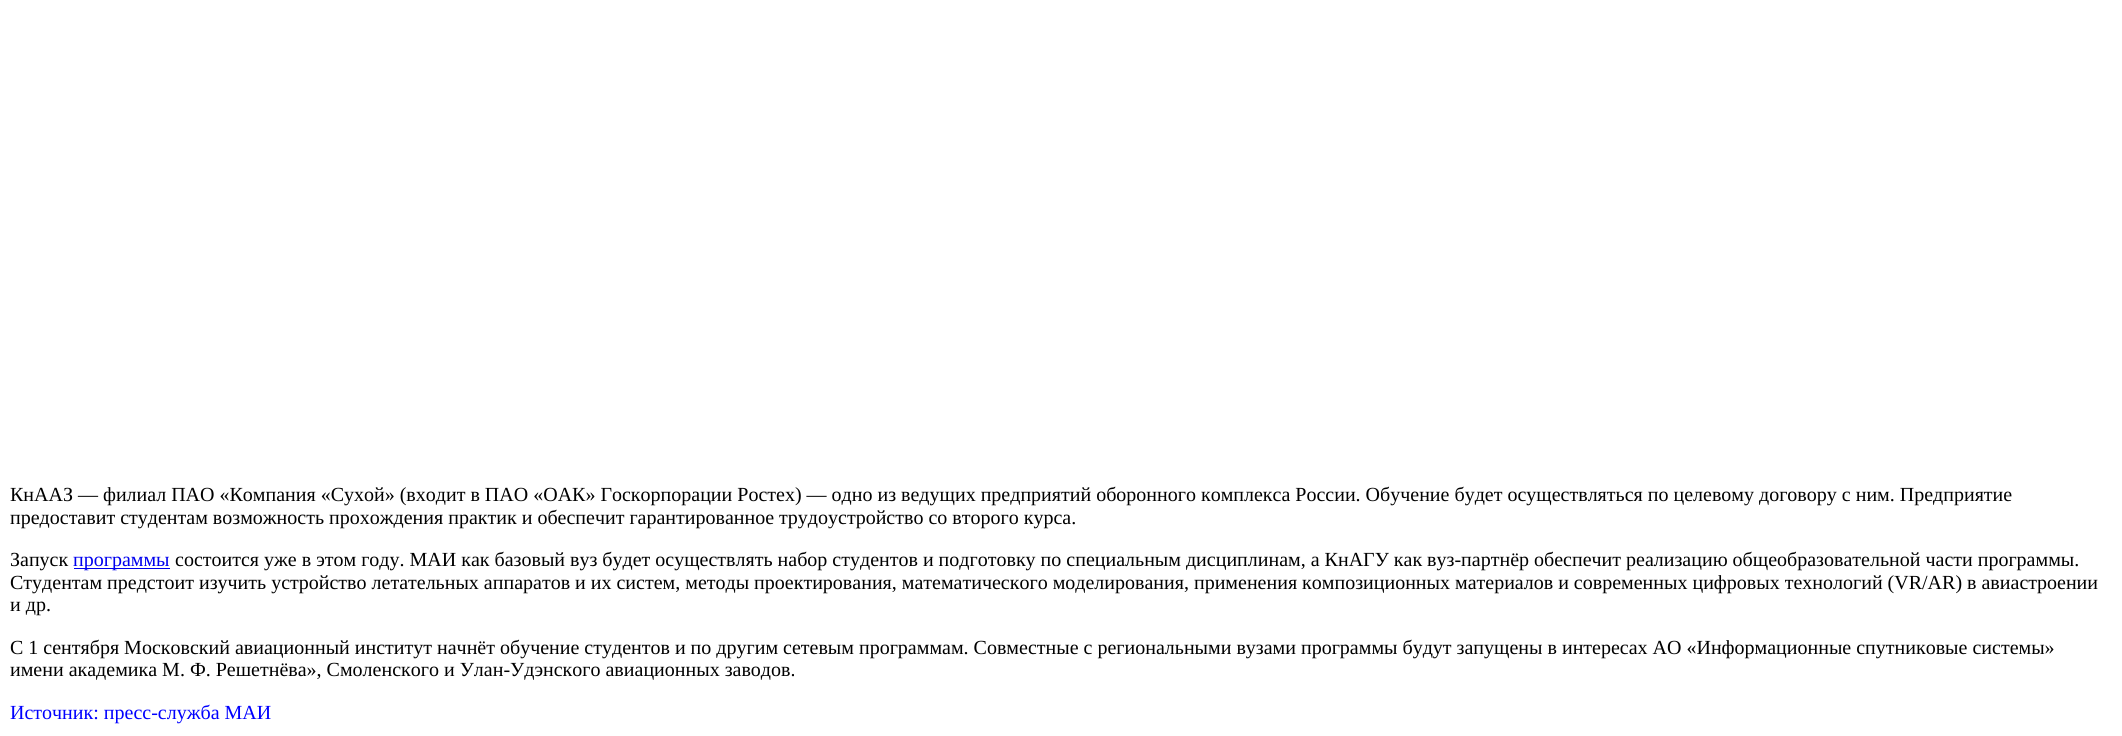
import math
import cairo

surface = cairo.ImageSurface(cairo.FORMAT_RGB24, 2122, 736)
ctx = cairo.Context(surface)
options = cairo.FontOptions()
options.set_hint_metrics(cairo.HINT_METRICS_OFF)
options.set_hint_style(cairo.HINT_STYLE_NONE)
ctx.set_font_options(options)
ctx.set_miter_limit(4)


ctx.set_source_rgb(1, 1, 1)
ctx.paint()
ctx.select_font_face("Liberation Serif")
ctx.set_font_size(20)
ctx.set_source_rgb(0, 0, 0)
ctx.move_to(10, 501)
ctx.show_text("КнААЗ — филиал ПАО «Компания «Сухой» (входит в ПАО «ОАК» Госкорпорации Ростех) — одно из ведущих предприятий оборонного комплекса России. Обучение будет осуществляться по целевому договору с ним. Предприятие")
ctx.move_to(10, 524)
ctx.show_text("предоставит студентам возможность прохождения практик и обеспечит гарантированное трудоустройство со второго курса.")
ctx.move_to(10, 566)
ctx.show_text("Запуск")
ctx.set_source_rgb(0, 0, 0.933)
ctx.rectangle(74, 568, 96, 1)
ctx.fill()
ctx.move_to(73, 566)
ctx.show_text("программы")
ctx.set_source_rgb(0, 0, 0)
ctx.move_to(175, 566)
ctx.show_text("состоится уже в этом году. МАИ как базовый вуз будет осуществлять набор студентов и подготовку по специальным дисциплинам, а КнАГУ как вуз-партнёр обеспечит реализацию общеобразовательной части программы.")
ctx.move_to(10, 589)
ctx.show_text("Студентам предстоит изучить устройство летательных аппаратов и их систем, методы проектирования, математического моделирования, применения композиционных материалов и современных цифровых технологий (VR/AR) в авиастроении")
ctx.move_to(10, 611)
ctx.show_text("и др.")
ctx.move_to(10, 654)
ctx.show_text("С 1 сентября Московский авиационный институт начнёт обучение студентов и по другим сетевым программам. Совместные с региональными вузами программы будут запущены в интересах АО «Информационные спутниковые системы»")
ctx.move_to(10, 676)
ctx.show_text("имени академика М. Ф. Решетнёва», Смоленского и Улан-Удэнского авиационных заводов.")
ctx.set_source_rgb(0, 0, 1)
ctx.move_to(10, 719)
ctx.show_text("Источник: пресс-служба МАИ")
surface.write_to_png("page.png")
